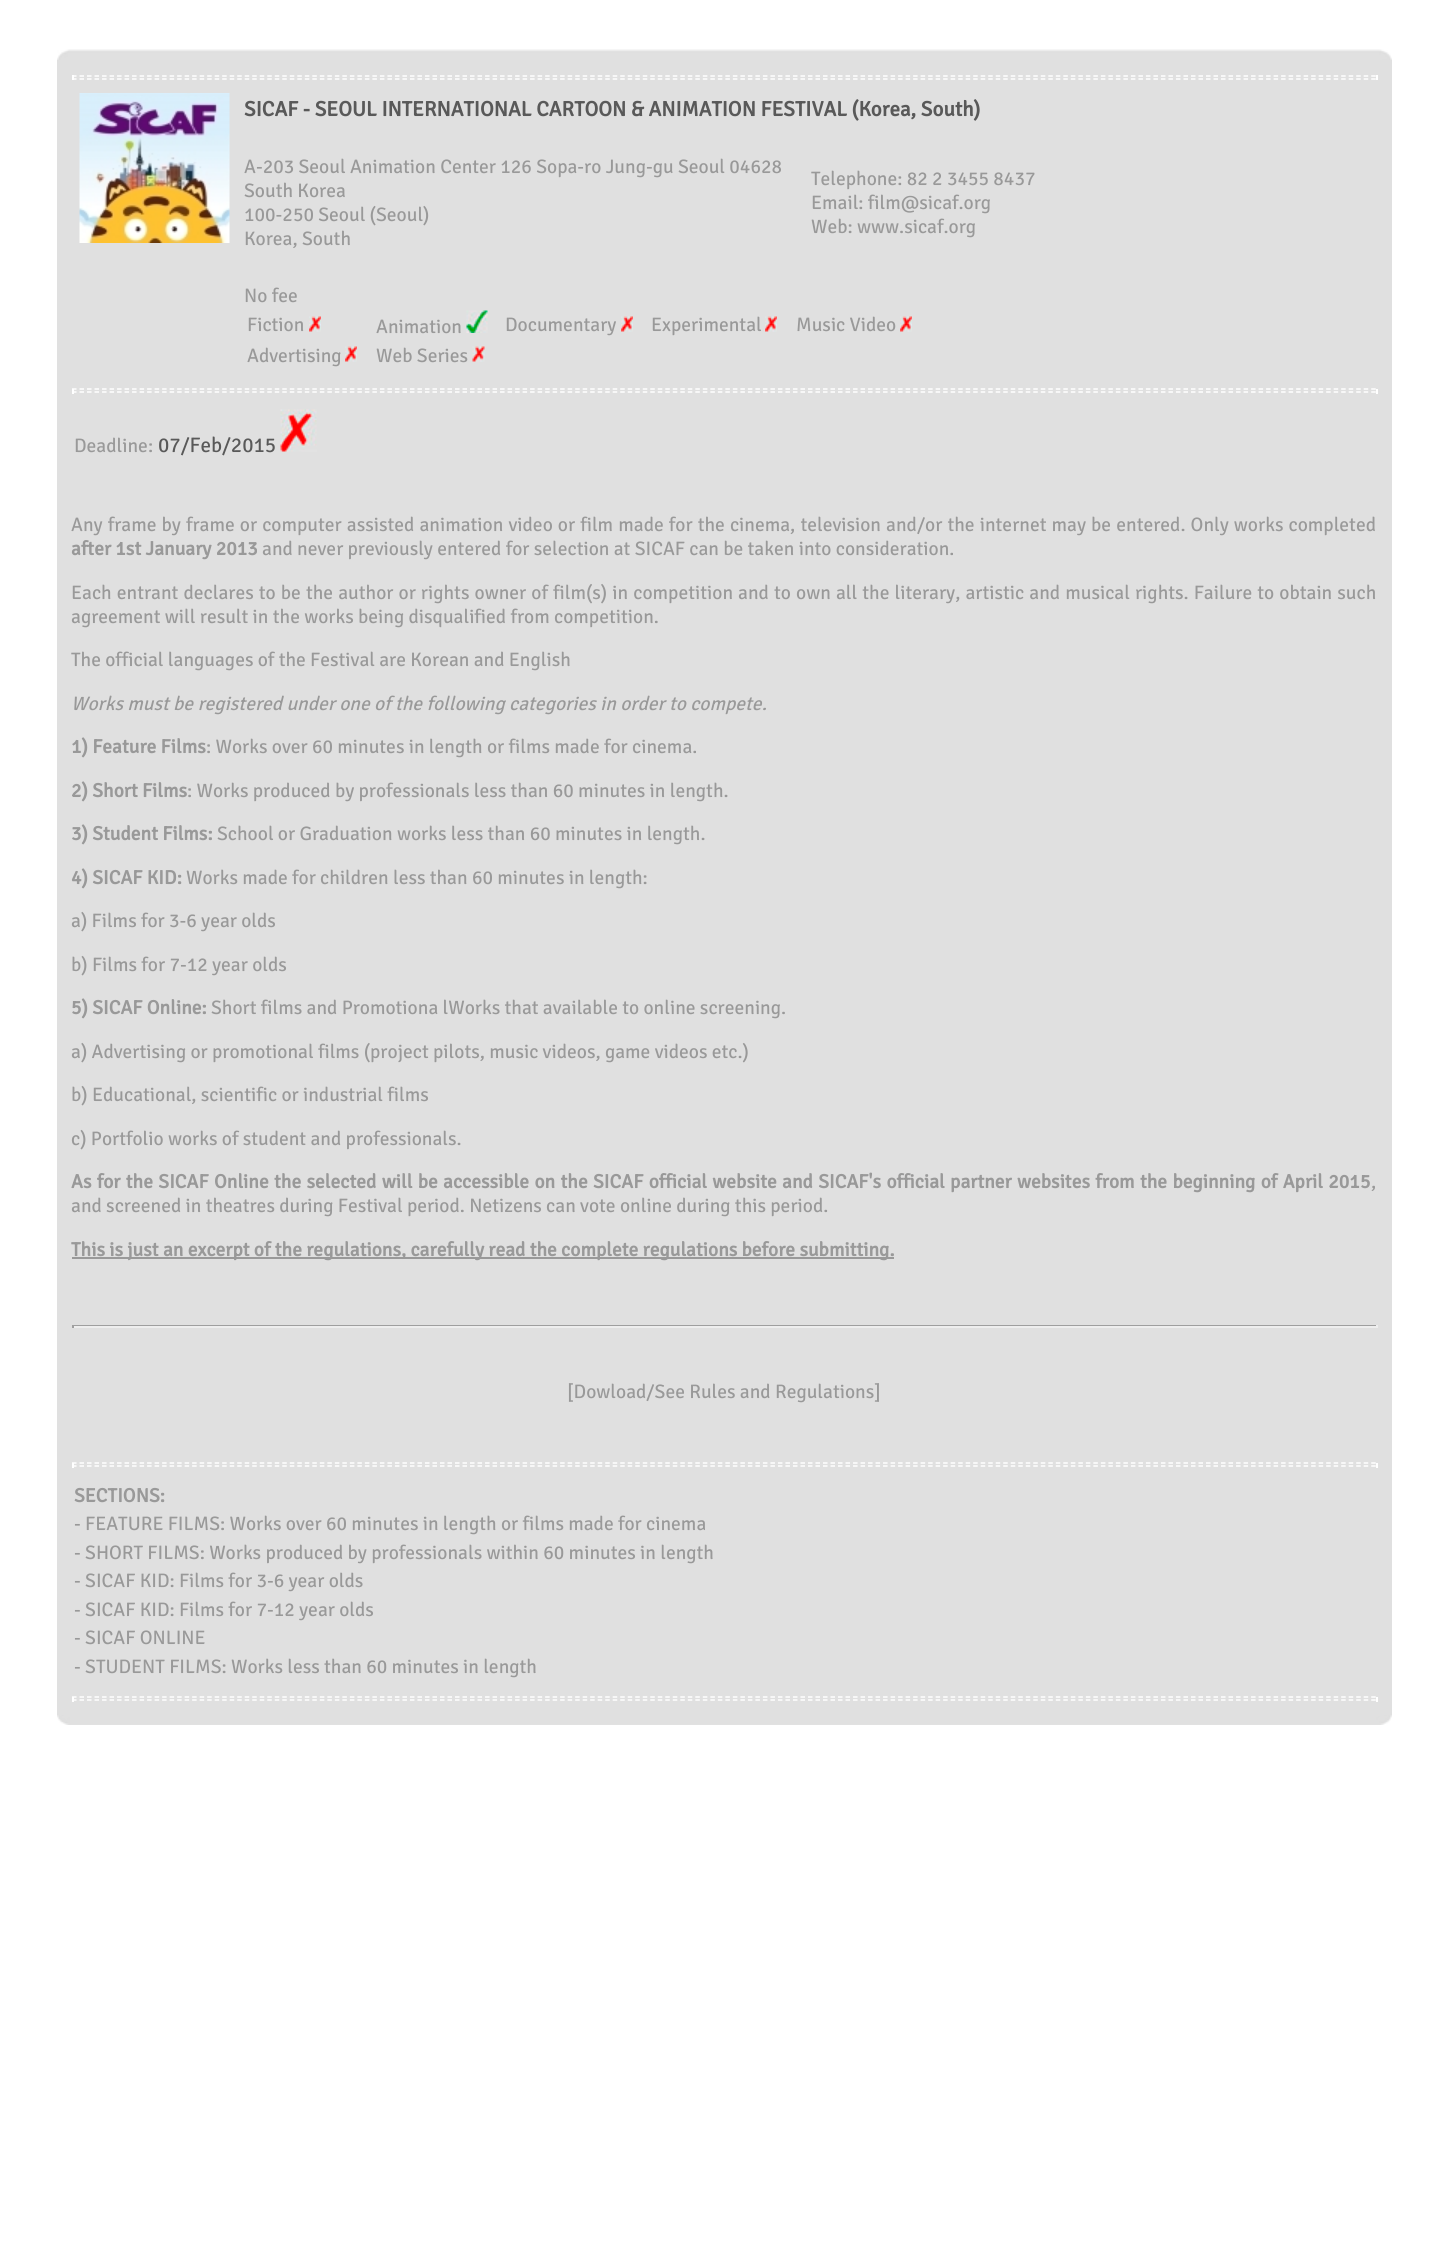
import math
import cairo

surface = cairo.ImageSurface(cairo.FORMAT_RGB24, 1447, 2247)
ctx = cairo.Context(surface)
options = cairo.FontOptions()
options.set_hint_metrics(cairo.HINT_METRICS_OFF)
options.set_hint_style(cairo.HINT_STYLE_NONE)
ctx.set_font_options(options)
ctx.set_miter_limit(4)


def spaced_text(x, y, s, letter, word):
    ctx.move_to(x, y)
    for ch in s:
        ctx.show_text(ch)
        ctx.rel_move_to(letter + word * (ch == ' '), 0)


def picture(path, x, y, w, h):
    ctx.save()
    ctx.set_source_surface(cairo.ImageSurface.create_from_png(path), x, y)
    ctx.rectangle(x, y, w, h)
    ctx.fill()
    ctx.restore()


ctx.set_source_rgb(1, 1, 1)
ctx.paint()
ctx.set_source_rgb(0.878, 0.878, 0.878)
ctx.rectangle(57, 60, 1335, 1655)
ctx.fill()
picture("img1.png", 57, 49, 1335, 11)
ctx.new_path()
ctx.move_to(72, 76)
ctx.line_to(1377, 76)
ctx.set_source_rgb(1, 1, 1)
ctx.set_line_width(1.5)
ctx.set_dash([4.5, 3.01])
ctx.stroke()
ctx.rectangle(1376, 75, 2, 5)
ctx.fill()
ctx.new_path()
ctx.move_to(72, 79)
ctx.line_to(1377, 79)
ctx.stroke()
ctx.rectangle(72, 75, 2, 5)
ctx.fill()
picture("img2.png", 79, 93, 151, 150)
ctx.select_font_face("Signika Negative", cairo.FONT_SLANT_NORMAL, cairo.FONT_WEIGHT_BOLD)
ctx.set_font_size(21)
ctx.set_source_rgb(0.349, 0.349, 0.349)
ctx.move_to(244, 116)
ctx.show_text("SICAF - SEOUL INTERNATIONAL CARTOON & ANIMATION FESTIVAL (Korea, South)")
ctx.select_font_face("Signika Negative Light")
ctx.set_font_size(19.5)
ctx.set_source_rgb(0.6, 0.6, 0.6)
ctx.move_to(244, 173)
ctx.show_text("A-203 Seoul Animation Center 126 Sopa-ro Jung-gu Seoul 04628")
ctx.move_to(244, 197)
ctx.show_text("South Korea")
ctx.move_to(244, 221)
ctx.show_text("100-250 Seoul (Seoul)")
ctx.move_to(244, 245)
ctx.show_text("Korea, South")
ctx.move_to(811, 185)
ctx.show_text("Telephone: 82 2 3455 8437")
ctx.move_to(811, 209)
ctx.show_text("Email: film@sicaf.org")
ctx.move_to(811, 233)
ctx.show_text("Web: www.sicaf.org")
ctx.move_to(244, 302)
ctx.show_text("No fee")
ctx.move_to(247, 331)
ctx.show_text("Fiction")
picture("img3.png", 309, 316, 12, 16)
ctx.move_to(376, 333)
ctx.show_text("Animation")
picture("img4.png", 466, 310, 22, 23)
ctx.move_to(505, 331)
ctx.show_text("Documentary")
picture("img5.png", 621, 316, 12, 16)
ctx.move_to(651, 331)
ctx.show_text("Experimental")
picture("img5.png", 765, 316, 12, 16)
ctx.move_to(796, 331)
ctx.show_text("Music Video")
picture("img5.png", 900, 316, 12, 16)
ctx.move_to(247, 362)
ctx.show_text("Advertising")
picture("img3.png", 345, 346, 12, 16)
ctx.move_to(376, 362)
ctx.show_text("Web Series")
picture("img6.png", 472, 346, 13, 16)
ctx.new_path()
ctx.move_to(72, 389)
ctx.line_to(1377, 389)
ctx.set_source_rgb(1, 1, 1)
ctx.stroke()
ctx.rectangle(1376, 389, 2, 5)
ctx.fill()
ctx.new_path()
ctx.move_to(72, 392)
ctx.line_to(1377, 392)
ctx.stroke()
ctx.rectangle(72, 389, 2, 5)
ctx.fill()
ctx.set_source_rgb(0.6, 0.6, 0.6)
ctx.move_to(74, 452)
ctx.show_text("Deadline:")
ctx.set_font_size(21)
ctx.set_source_rgb(0.349, 0.349, 0.349)
ctx.move_to(158, 452)
ctx.show_text("07/Feb/2015")
picture("img7.png", 280, 409, 37, 43)
ctx.set_font_size(19.5)
ctx.set_source_rgb(0.6, 0.6, 0.6)
spaced_text(71, 531, "Any frame by frame or computer assisted animation video or film made for the cinema, television and/or the internet may be entered. Only works completed", 0, 0.8)
ctx.select_font_face("Signika Negative", cairo.FONT_SLANT_NORMAL, cairo.FONT_WEIGHT_BOLD)
ctx.move_to(71, 555)
ctx.show_text("after 1st January 2013")
ctx.select_font_face("Signika Negative Light")
ctx.move_to(262, 555)
ctx.show_text("and never previously entered for selection at SICAF can be taken into consideration.")
spaced_text(71, 599, "Each entrant declares to be the author or rights owner of film(s) in competition and to own all the literary, artistic and musical rights. Failure to obtain such", 0, 0.8)
ctx.move_to(71, 623)
ctx.show_text("agreement will result in the works being disqualified from competition.")
ctx.move_to(71, 666)
ctx.show_text("The official languages of the Festival are Korean and English")
ctx.select_font_face("Signika Negative Light", cairo.FONT_SLANT_ITALIC)
ctx.move_to(71, 710)
ctx.show_text("Works must be registered under one of the following categories in order to compete.")
ctx.select_font_face("Signika Negative", cairo.FONT_SLANT_NORMAL, cairo.FONT_WEIGHT_BOLD)
ctx.move_to(71, 753)
ctx.show_text("1) Feature Films")
ctx.select_font_face("Signika Negative Light")
ctx.move_to(206, 753)
ctx.show_text(": Works over 60 minutes in length or films made for cinema.")
ctx.select_font_face("Signika Negative", cairo.FONT_SLANT_NORMAL, cairo.FONT_WEIGHT_BOLD)
ctx.move_to(71, 797)
ctx.show_text("2) Short Films")
ctx.select_font_face("Signika Negative Light")
ctx.move_to(187, 797)
ctx.show_text(": Works produced by professionals less than 60 minutes in length.")
ctx.select_font_face("Signika Negative", cairo.FONT_SLANT_NORMAL, cairo.FONT_WEIGHT_BOLD)
ctx.move_to(71, 840)
ctx.show_text("3) Student Films:")
ctx.select_font_face("Signika Negative Light")
ctx.move_to(217, 840)
ctx.show_text("School or Graduation works less than 60 minutes in length.")
ctx.select_font_face("Signika Negative", cairo.FONT_SLANT_NORMAL, cairo.FONT_WEIGHT_BOLD)
ctx.move_to(71, 884)
ctx.show_text("4) SICAF KID:")
ctx.select_font_face("Signika Negative Light")
ctx.move_to(186, 884)
ctx.show_text("Works made for children less than 60 minutes in length:")
ctx.move_to(71, 927)
ctx.show_text("a) Films for 3-6 year olds")
ctx.move_to(71, 971)
ctx.show_text("b) Films for 7-12 year olds")
ctx.select_font_face("Signika Negative", cairo.FONT_SLANT_NORMAL, cairo.FONT_WEIGHT_BOLD)
ctx.move_to(71, 1014)
ctx.show_text("5) SICAF Online:")
ctx.select_font_face("Signika Negative Light")
ctx.move_to(211, 1014)
ctx.show_text("Short films and Promotiona lWorks that available to online screening.")
ctx.move_to(71, 1058)
ctx.show_text("a) Advertising or promotional films (project pilots, music videos, game videos etc.)")
ctx.move_to(71, 1101)
ctx.show_text("b) Educational, scientific or industrial films")
ctx.move_to(71, 1145)
ctx.show_text("c) Portfolio works of student and professionals.")
ctx.select_font_face("Signika Negative", cairo.FONT_SLANT_NORMAL, cairo.FONT_WEIGHT_BOLD)
spaced_text(71, 1188, "As for the SICAF Online the selected will be accessible on the SICAF official website and SICAF's official partner websites from the beginning of April 2015", 0, 1.05)
ctx.select_font_face("Signika Negative Light")
ctx.move_to(1371, 1188)
ctx.show_text(",")
ctx.move_to(71, 1212)
ctx.show_text("and screened in theatres during Festival period. Netizens can vote online during this period.")
ctx.rectangle(72, 1257, 822, 2)
ctx.fill()
ctx.select_font_face("Signika Negative", cairo.FONT_SLANT_NORMAL, cairo.FONT_WEIGHT_BOLD)
ctx.move_to(71, 1256)
ctx.show_text("This is just an excerpt of the regulations, carefully read the complete regulations before submitting.")
ctx.set_source_rgb(0.624, 0.624, 0.624)
ctx.rectangle(72, 1325, 1305, 1)
ctx.fill()
ctx.set_source_rgb(0.933, 0.933, 0.933)
ctx.rectangle(1376, 1325, 2, 3)
ctx.fill()
ctx.rectangle(72, 1326, 1305, 2)
ctx.fill()
ctx.set_source_rgb(0.624, 0.624, 0.624)
ctx.rectangle(72, 1325, 2, 3)
ctx.fill()
ctx.select_font_face("Signika Negative Light")
ctx.set_source_rgb(0.6, 0.6, 0.6)
ctx.move_to(567, 1398)
ctx.show_text("[Dowload/See Rules and Regulations]")
ctx.new_path()
ctx.move_to(72, 1463)
ctx.line_to(1377, 1463)
ctx.set_source_rgb(1, 1, 1)
ctx.stroke()
ctx.rectangle(1376, 1463, 2, 5)
ctx.fill()
ctx.new_path()
ctx.move_to(72, 1466)
ctx.line_to(1377, 1466)
ctx.stroke()
ctx.rectangle(72, 1463, 2, 5)
ctx.fill()
ctx.select_font_face("Signika Negative", cairo.FONT_SLANT_NORMAL, cairo.FONT_WEIGHT_BOLD)
ctx.set_source_rgb(0.6, 0.6, 0.6)
ctx.move_to(74, 1502)
ctx.show_text("SECTIONS:")
ctx.select_font_face("Signika Negative Light")
ctx.move_to(74, 1530)
ctx.show_text("- FEATURE FILMS: Works over 60 minutes in length or films made for cinema")
ctx.move_to(74, 1559)
ctx.show_text("- SHORT FILMS: Works produced by professionals within 60 minutes in length")
ctx.move_to(74, 1587)
ctx.show_text("- SICAF KID: Films for 3-6 year olds")
ctx.move_to(74, 1616)
ctx.show_text("- SICAF KID: Films for 7-12 year olds")
ctx.move_to(74, 1644)
ctx.show_text("- SICAF ONLINE")
ctx.move_to(74, 1673)
ctx.show_text("- STUDENT FILMS: Works less than 60 minutes in length")
ctx.new_path()
ctx.move_to(72, 1697)
ctx.line_to(1377, 1697)
ctx.set_source_rgb(1, 1, 1)
ctx.stroke()
ctx.rectangle(1376, 1697, 2, 5)
ctx.fill()
ctx.new_path()
ctx.move_to(72, 1700)
ctx.line_to(1377, 1700)
ctx.stroke()
ctx.rectangle(72, 1697, 2, 5)
ctx.fill()
picture("img8.png", 57, 1715, 1335, 10)
surface.write_to_png("page.png")
